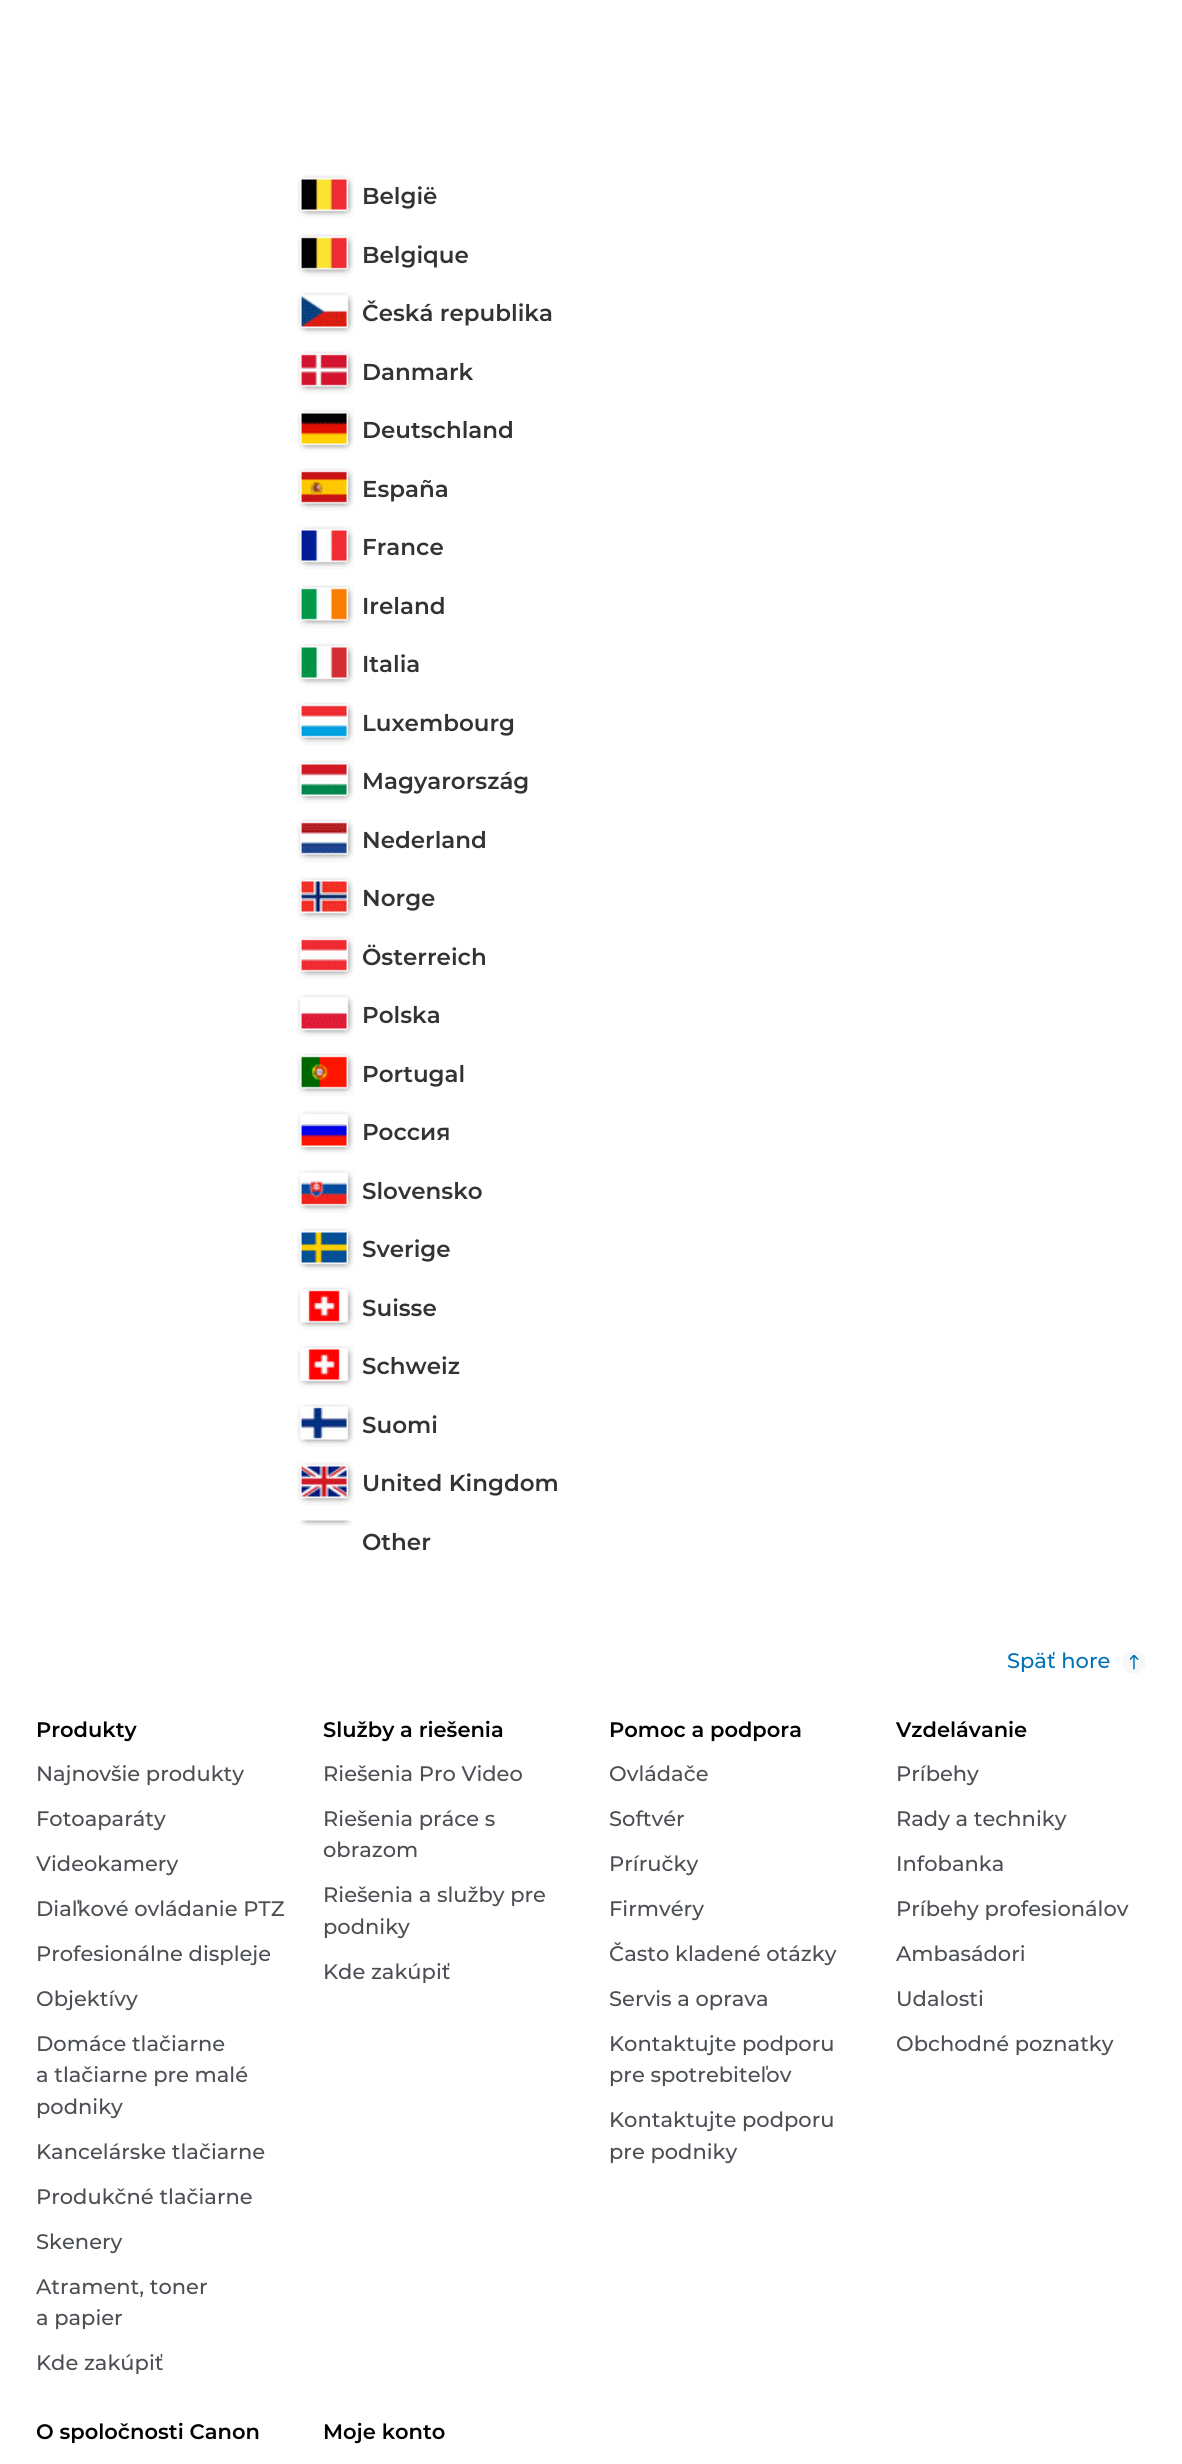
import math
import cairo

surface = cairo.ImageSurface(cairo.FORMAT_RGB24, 1182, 2464)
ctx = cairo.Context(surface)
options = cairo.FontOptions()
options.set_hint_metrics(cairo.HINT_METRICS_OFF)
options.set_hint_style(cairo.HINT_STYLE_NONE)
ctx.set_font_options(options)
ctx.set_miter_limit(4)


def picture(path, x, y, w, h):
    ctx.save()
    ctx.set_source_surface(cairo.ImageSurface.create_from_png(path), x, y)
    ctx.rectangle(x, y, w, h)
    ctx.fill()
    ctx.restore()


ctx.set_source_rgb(1, 1, 1)
ctx.paint()
picture("img1.png", 297, 175, 57, 43)
ctx.select_font_face("Montserrat SemiBold")
ctx.set_font_size(23)
ctx.set_source_rgb(0.2, 0.2, 0.2)
ctx.move_to(362, 204)
ctx.show_text("België")
picture("img2.png", 297, 234, 57, 43)
ctx.move_to(362, 263)
ctx.show_text("Belgique")
picture("img3.png", 297, 292, 57, 43)
ctx.move_to(362, 321)
ctx.show_text("Česká republika")
picture("img4.png", 297, 351, 57, 43)
ctx.move_to(362, 380)
ctx.show_text("Danmark")
picture("img5.png", 297, 409, 57, 43)
ctx.move_to(362, 438)
ctx.show_text("Deutschland")
picture("img6.png", 297, 468, 57, 43)
ctx.move_to(362, 497)
ctx.show_text("España")
picture("img7.png", 297, 526, 57, 43)
ctx.move_to(362, 555)
ctx.show_text("France")
picture("img8.png", 297, 585, 57, 43)
ctx.move_to(362, 614)
ctx.show_text("Ireland")
picture("img9.png", 297, 643, 57, 43)
ctx.move_to(362, 672)
ctx.show_text("Italia")
picture("img10.png", 297, 702, 57, 43)
ctx.move_to(362, 731)
ctx.show_text("Luxembourg")
picture("img11.png", 297, 760, 57, 43)
ctx.move_to(362, 789)
ctx.show_text("Magyarország")
picture("img12.png", 297, 819, 57, 43)
ctx.move_to(362, 848)
ctx.show_text("Nederland")
picture("img13.png", 297, 877, 57, 43)
ctx.move_to(362, 906)
ctx.show_text("Norge")
picture("img14.png", 297, 936, 57, 43)
ctx.move_to(362, 965)
ctx.show_text("Österreich")
picture("img15.png", 297, 994, 57, 43)
ctx.move_to(362, 1023)
ctx.show_text("Polska")
picture("img16.png", 297, 1053, 57, 43)
ctx.move_to(362, 1082)
ctx.show_text("Portugal")
picture("img17.png", 297, 1111, 57, 43)
ctx.move_to(362, 1140)
ctx.show_text("Россия")
picture("img18.png", 297, 1170, 57, 43)
ctx.move_to(362, 1199)
ctx.show_text("Slovensko")
picture("img19.png", 297, 1228, 57, 43)
ctx.move_to(362, 1257)
ctx.show_text("Sverige")
picture("img20.png", 297, 1287, 57, 43)
ctx.move_to(362, 1316)
ctx.show_text("Suisse")
picture("img21.png", 297, 1345, 57, 43)
ctx.move_to(362, 1374)
ctx.show_text("Schweiz")
picture("img22.png", 297, 1404, 57, 43)
ctx.move_to(362, 1433)
ctx.show_text("Suomi")
picture("img23.png", 297, 1462, 57, 43)
ctx.move_to(362, 1491)
ctx.show_text("United Kingdom")
picture("img24.png", 299, 1520, 54, 6)
ctx.move_to(362, 1550)
ctx.show_text("Other")
ctx.select_font_face("Montserrat Medium")
ctx.set_font_size(21)
ctx.set_source_rgb(0, 0.443, 0.722)
ctx.move_to(1007, 1668)
ctx.show_text("Späť hore")
ctx.set_source_rgb(0.961, 0.965, 0.965)
ctx.new_path()
ctx.arc(1134, 1662, 12, 0, 2 * math.pi)
ctx.fill()
picture("img25.png", 1130, 1655, 9, 15)
ctx.select_font_face("Montserrat SemiBold")
ctx.set_source_rgb(0, 0, 0)
ctx.move_to(36, 1737)
ctx.show_text("Produkty")
ctx.select_font_face("Montserrat Medium")
ctx.set_source_rgb(0.294, 0.31, 0.329)
ctx.move_to(36, 1781)
ctx.show_text("Najnovšie produkty")
ctx.move_to(36, 1826)
ctx.show_text("Fotoaparáty")
ctx.move_to(36, 1871)
ctx.show_text("Videokamery")
ctx.move_to(36, 1916)
ctx.show_text("Diaľkové ovládanie PTZ")
ctx.move_to(36, 1961)
ctx.show_text("Profesionálne displeje")
ctx.move_to(36, 2006)
ctx.show_text("Objektívy")
ctx.move_to(36, 2051)
ctx.show_text("Domáce tlačiarne")
ctx.move_to(36, 2082)
ctx.show_text("a tlačiarne pre malé")
ctx.move_to(36, 2114)
ctx.show_text("podniky")
ctx.move_to(36, 2159)
ctx.show_text("Kancelárske tlačiarne")
ctx.move_to(36, 2204)
ctx.show_text("Produkčné tlačiarne")
ctx.move_to(36, 2249)
ctx.show_text("Skenery")
ctx.move_to(36, 2294)
ctx.show_text("Atrament, toner")
ctx.move_to(36, 2325)
ctx.show_text("a papier")
ctx.move_to(36, 2370)
ctx.show_text("Kde zakúpiť")
ctx.select_font_face("Montserrat SemiBold")
ctx.set_source_rgb(0, 0, 0)
ctx.move_to(323, 1737)
ctx.show_text("Služby a riešenia")
ctx.select_font_face("Montserrat Medium")
ctx.set_source_rgb(0.294, 0.31, 0.329)
ctx.move_to(323, 1781)
ctx.show_text("Riešenia Pro Video")
ctx.move_to(323, 1826)
ctx.show_text("Riešenia práce s")
ctx.move_to(323, 1857)
ctx.show_text("obrazom")
ctx.move_to(323, 1902)
ctx.show_text("Riešenia a služby pre")
ctx.move_to(323, 1934)
ctx.show_text("podniky")
ctx.move_to(323, 1979)
ctx.show_text("Kde zakúpiť")
ctx.select_font_face("Montserrat SemiBold")
ctx.set_source_rgb(0, 0, 0)
ctx.move_to(609, 1737)
ctx.show_text("Pomoc a podpora")
ctx.select_font_face("Montserrat Medium")
ctx.set_source_rgb(0.294, 0.31, 0.329)
ctx.move_to(609, 1781)
ctx.show_text("Ovládače")
ctx.move_to(609, 1826)
ctx.show_text("Softvér")
ctx.move_to(609, 1871)
ctx.show_text("Príručky")
ctx.move_to(609, 1916)
ctx.show_text("Firmvéry")
ctx.move_to(609, 1961)
ctx.show_text("Často kladené otázky")
ctx.move_to(609, 2006)
ctx.show_text("Servis a oprava")
ctx.move_to(609, 2051)
ctx.show_text("Kontaktujte podporu")
ctx.move_to(609, 2082)
ctx.show_text("pre spotrebiteľov")
ctx.move_to(609, 2127)
ctx.show_text("Kontaktujte podporu")
ctx.move_to(609, 2159)
ctx.show_text("pre podniky")
ctx.select_font_face("Montserrat SemiBold")
ctx.set_source_rgb(0, 0, 0)
ctx.move_to(896, 1737)
ctx.show_text("Vzdelávanie")
ctx.select_font_face("Montserrat Medium")
ctx.set_source_rgb(0.294, 0.31, 0.329)
ctx.move_to(896, 1781)
ctx.show_text("Príbehy")
ctx.move_to(896, 1826)
ctx.show_text("Rady a techniky")
ctx.move_to(896, 1871)
ctx.show_text("Infobanka")
ctx.move_to(896, 1916)
ctx.show_text("Príbehy profesionálov")
ctx.move_to(896, 1961)
ctx.show_text("Ambasádori")
ctx.move_to(896, 2006)
ctx.show_text("Udalosti")
ctx.move_to(896, 2051)
ctx.show_text("Obchodné poznatky")
ctx.select_font_face("Montserrat SemiBold")
ctx.set_source_rgb(0, 0, 0)
ctx.move_to(36, 2439)
ctx.show_text("O spoločnosti Canon")
ctx.move_to(323, 2439)
ctx.show_text("Moje konto")
surface.write_to_png("page.png")
